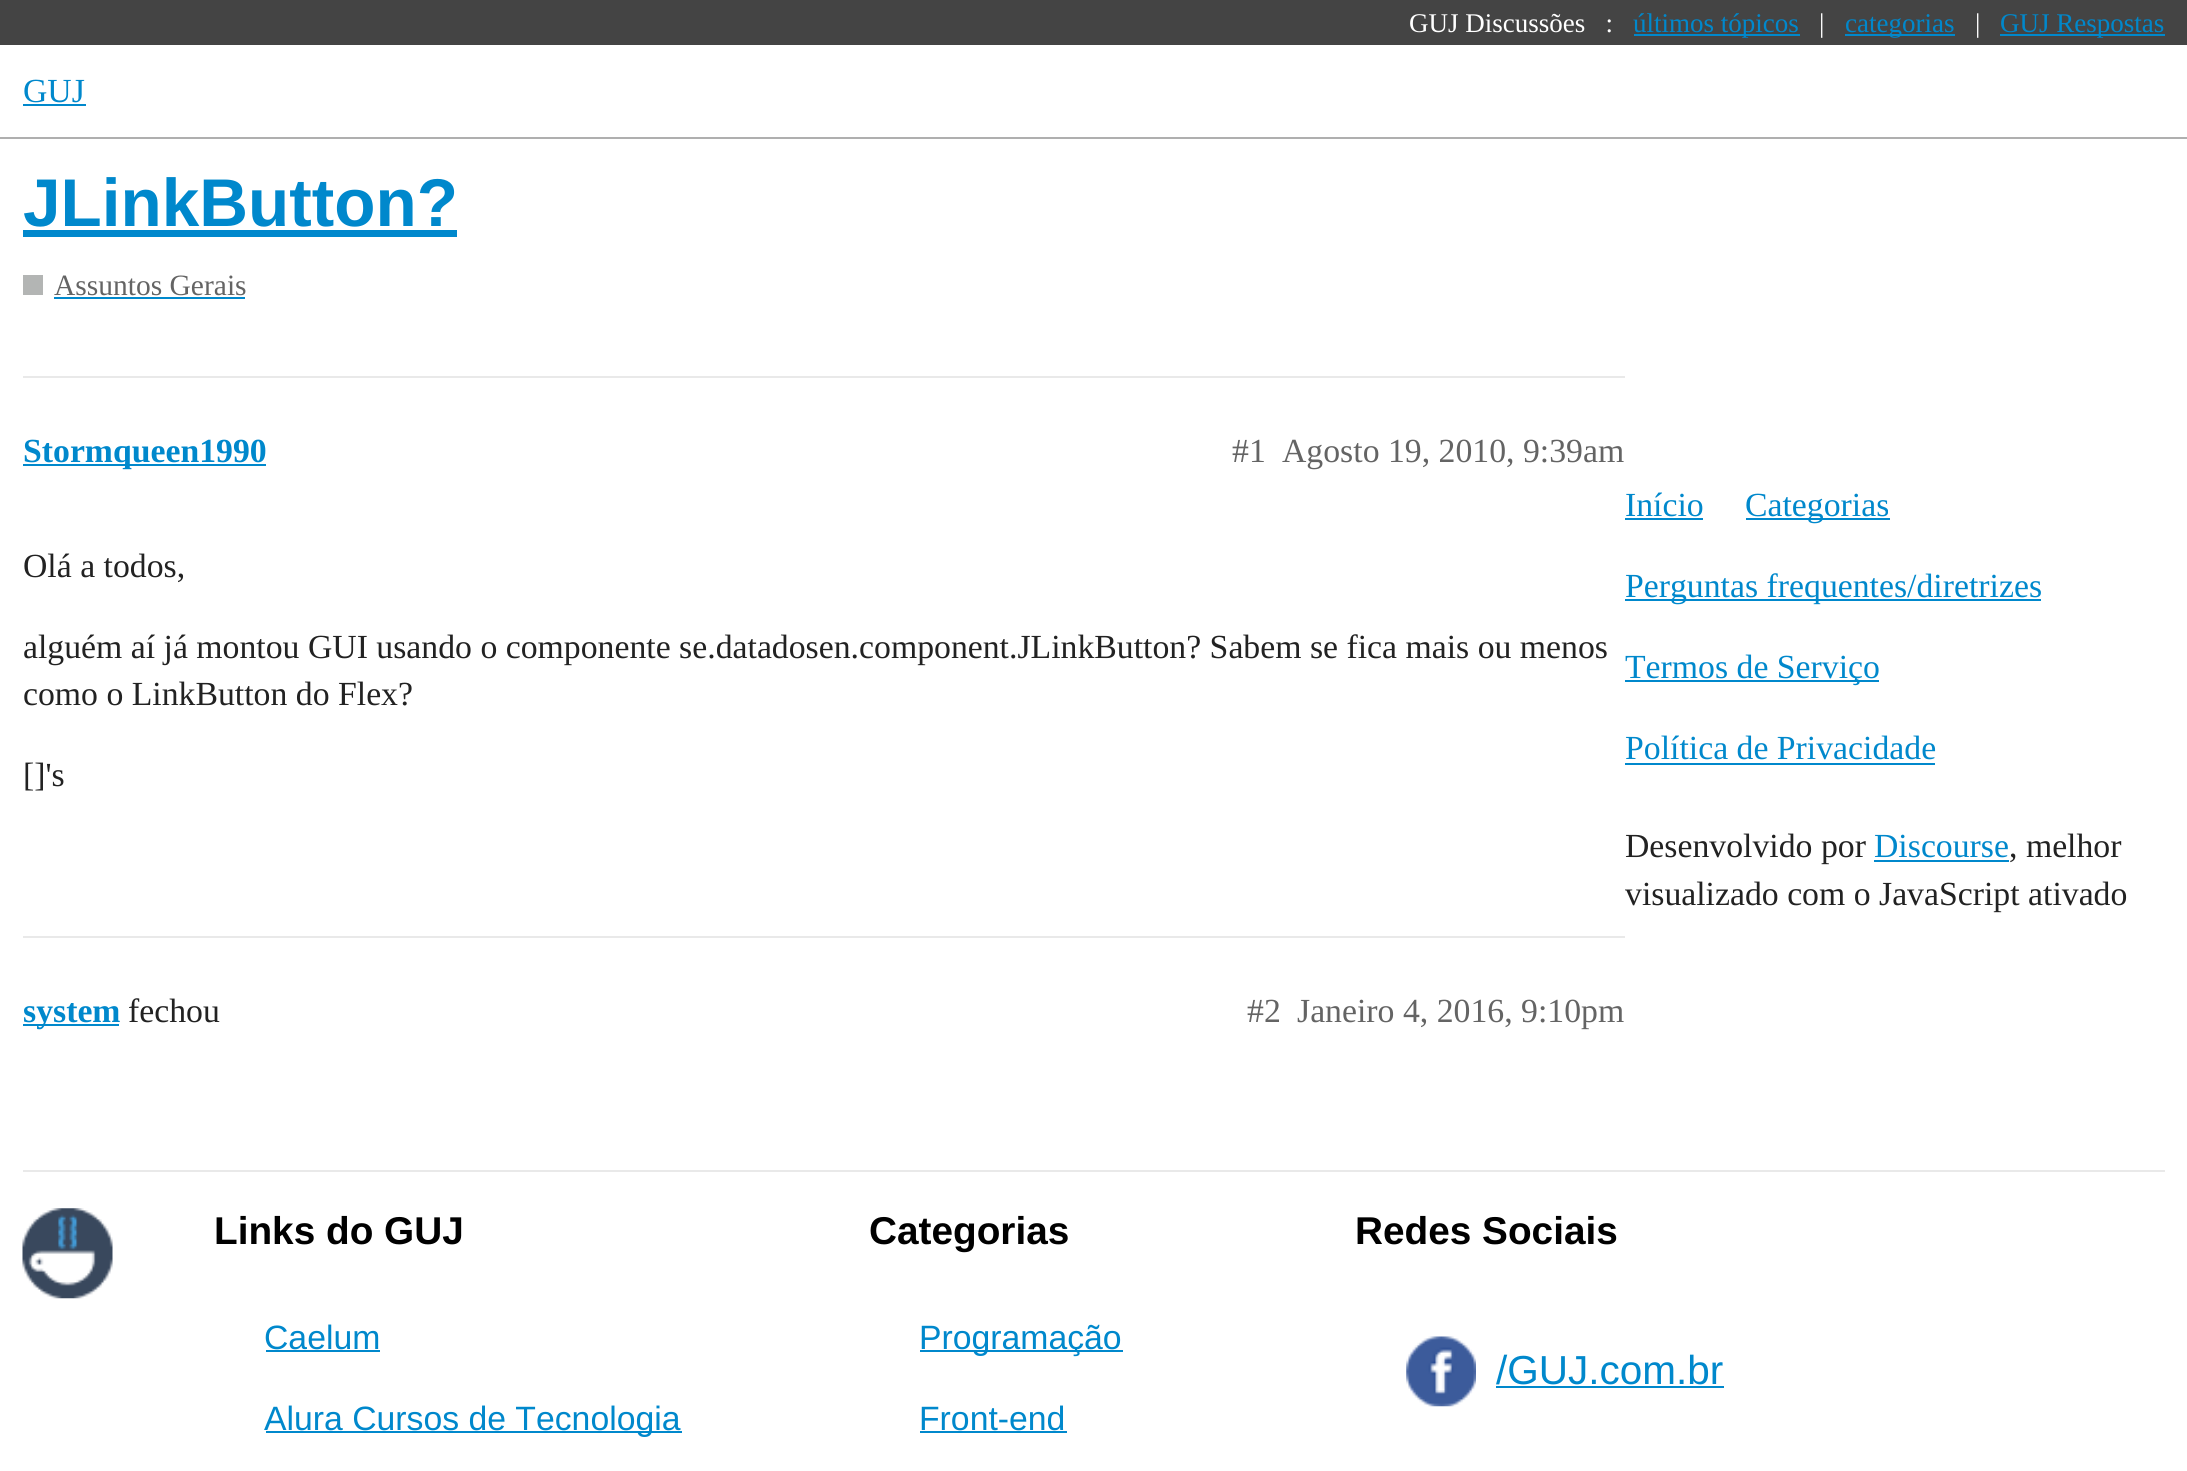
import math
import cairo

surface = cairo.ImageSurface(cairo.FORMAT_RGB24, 2187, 1471)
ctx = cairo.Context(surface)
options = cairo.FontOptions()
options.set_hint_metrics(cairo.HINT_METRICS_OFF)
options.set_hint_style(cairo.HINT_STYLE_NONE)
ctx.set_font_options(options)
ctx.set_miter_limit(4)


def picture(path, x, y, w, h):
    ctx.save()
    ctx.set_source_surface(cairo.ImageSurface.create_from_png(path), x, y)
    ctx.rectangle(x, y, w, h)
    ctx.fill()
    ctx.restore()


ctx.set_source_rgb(1, 1, 1)
ctx.paint()
ctx.set_source_rgb(0.267, 0.267, 0.267)
ctx.rectangle(0, 0, 2187, 45)
ctx.fill()
ctx.select_font_face("Liberation Serif")
ctx.set_font_size(27)
ctx.set_source_rgb(1, 1, 1)
ctx.move_to(1409, 32)
ctx.show_text("GUJ Discussões   :")
ctx.set_source_rgb(0, 0.533, 0.8)
ctx.rectangle(1634, 34, 166, 2)
ctx.fill()
ctx.move_to(1633, 32)
ctx.show_text("últimos tópicos")
ctx.set_source_rgb(1, 1, 1)
ctx.move_to(1819, 32)
ctx.show_text("|")
ctx.set_source_rgb(0, 0.533, 0.8)
ctx.rectangle(1845, 34, 110, 2)
ctx.fill()
ctx.move_to(1845, 32)
ctx.show_text("categorias")
ctx.set_source_rgb(1, 1, 1)
ctx.move_to(1975, 32)
ctx.show_text("|")
ctx.set_source_rgb(0, 0.533, 0.8)
ctx.rectangle(2000, 34, 165, 2)
ctx.fill()
ctx.move_to(2000, 32)
ctx.show_text("GUJ Respostas")
ctx.set_source_rgb(0.686, 0.686, 0.686)
ctx.rectangle(0, 137, 2187, 2)
ctx.fill()
ctx.set_font_size(33.75)
ctx.set_source_rgb(0, 0.533, 0.8)
ctx.move_to(23, 102)
ctx.show_text("GUJ")
ctx.rectangle(23, 104, 63, 2)
ctx.fill()
ctx.select_font_face("Liberation Sans", cairo.FONT_SLANT_NORMAL, cairo.FONT_WEIGHT_BOLD)
ctx.set_font_size(67.5)
ctx.move_to(23, 226)
ctx.show_text("JLinkButton?")
ctx.rectangle(23, 230, 434, 7)
ctx.fill()
ctx.set_source_rgb(0.702, 0.71, 0.706)
ctx.rectangle(23, 275, 20, 20)
ctx.fill()
ctx.select_font_face("Liberation Serif")
ctx.set_font_size(29.5)
ctx.set_source_rgb(0.392, 0.392, 0.392)
ctx.move_to(54, 295)
ctx.show_text("Assuntos Gerais")
ctx.set_source_rgb(0, 0.533, 0.8)
ctx.rectangle(54, 297, 191, 2)
ctx.fill()
ctx.set_source_rgb(0.914, 0.914, 0.914)
ctx.rectangle(23, 376, 1602, 2)
ctx.fill()
ctx.set_source_rgb(0, 0.533, 0.8)
ctx.rectangle(23, 464, 243, 2)
ctx.fill()
ctx.select_font_face("Liberation Serif", cairo.FONT_SLANT_NORMAL, cairo.FONT_WEIGHT_BOLD)
ctx.set_font_size(33.75)
ctx.move_to(23, 462)
ctx.show_text("Stormqueen1990")
ctx.select_font_face("Liberation Serif")
ctx.set_source_rgb(0.392, 0.392, 0.392)
ctx.move_to(1232, 462)
ctx.show_text("#1")
ctx.move_to(1282, 462)
ctx.show_text("Agosto 19, 2010, 9:39am")
ctx.set_source_rgb(0.133, 0.133, 0.133)
ctx.move_to(23, 577)
ctx.show_text("Olá a todos,")
ctx.move_to(23, 658)
ctx.show_text("alguém aí já montou GUI usando o componente se.datadosen.component.JLinkButton? Sabem se fica mais ou menos")
ctx.move_to(23, 705)
ctx.show_text("como o LinkButton do Flex?")
ctx.move_to(23, 786)
ctx.show_text("[]'s")
ctx.set_source_rgb(0.914, 0.914, 0.914)
ctx.rectangle(23, 936, 1602, 2)
ctx.fill()
ctx.set_source_rgb(0, 0.533, 0.8)
ctx.rectangle(23, 1024, 96, 2)
ctx.fill()
ctx.select_font_face("Liberation Serif", cairo.FONT_SLANT_NORMAL, cairo.FONT_WEIGHT_BOLD)
ctx.move_to(23, 1022)
ctx.show_text("system")
ctx.select_font_face("Liberation Serif")
ctx.set_source_rgb(0.133, 0.133, 0.133)
ctx.move_to(128, 1022)
ctx.show_text("fechou")
ctx.set_source_rgb(0.392, 0.392, 0.392)
ctx.move_to(1247, 1022)
ctx.show_text("#2")
ctx.move_to(1297, 1022)
ctx.show_text("Janeiro 4, 2016, 9:10pm")
ctx.set_source_rgb(0, 0.533, 0.8)
ctx.move_to(1625, 516)
ctx.show_text("Início")
ctx.rectangle(1625, 518, 78, 2)
ctx.fill()
ctx.rectangle(1746, 518, 144, 2)
ctx.fill()
ctx.move_to(1745, 516)
ctx.show_text("Categorias")
ctx.rectangle(1625, 599, 416, 2)
ctx.fill()
ctx.move_to(1625, 597)
ctx.show_text("Perguntas frequentes/diretrizes")
ctx.rectangle(1625, 680, 254, 2)
ctx.fill()
ctx.move_to(1625, 678)
ctx.show_text("Termos de Serviço")
ctx.move_to(1625, 759)
ctx.show_text("Política de Privacidade")
ctx.rectangle(1625, 763, 310, 2)
ctx.fill()
ctx.set_source_rgb(0.133, 0.133, 0.133)
ctx.move_to(1625, 857)
ctx.show_text("Desenvolvido por")
ctx.set_source_rgb(0, 0.533, 0.8)
ctx.move_to(1874, 857)
ctx.show_text("Discourse")
ctx.rectangle(1874, 860, 135, 2)
ctx.fill()
ctx.set_source_rgb(0.133, 0.133, 0.133)
ctx.move_to(2009, 857)
ctx.show_text(", melhor")
ctx.move_to(1625, 905)
ctx.show_text("visualizado com o JavaScript ativado")
ctx.set_source_rgb(0.914, 0.914, 0.914)
ctx.rectangle(23, 1170, 2142, 2)
ctx.fill()
picture("img1.png", 22, 1208, 91, 91)
ctx.select_font_face("Liberation Sans", cairo.FONT_SLANT_NORMAL, cairo.FONT_WEIGHT_BOLD)
ctx.set_font_size(38.75)
ctx.set_source_rgb(0, 0, 0)
ctx.move_to(214, 1244)
ctx.show_text("Links do GUJ")
ctx.select_font_face("Liberation Sans")
ctx.set_font_size(33.75)
ctx.set_source_rgb(0, 0.533, 0.8)
ctx.move_to(264, 1349)
ctx.show_text("Caelum")
ctx.rectangle(266, 1350, 114, 2)
ctx.fill()
ctx.rectangle(266, 1431, 416, 2)
ctx.fill()
ctx.move_to(264, 1430)
ctx.show_text("Alura Cursos de Tecnologia")
ctx.select_font_face("Liberation Sans", cairo.FONT_SLANT_NORMAL, cairo.FONT_WEIGHT_BOLD)
ctx.set_font_size(38.75)
ctx.set_source_rgb(0, 0, 0)
ctx.move_to(869, 1244)
ctx.show_text("Categorias")
ctx.set_source_rgb(0, 0.533, 0.8)
ctx.rectangle(920, 1350, 203, 2)
ctx.fill()
ctx.select_font_face("Liberation Sans")
ctx.set_font_size(33.75)
ctx.move_to(919, 1349)
ctx.show_text("Programação")
ctx.move_to(919, 1430)
ctx.show_text("Front-end")
ctx.rectangle(920, 1431, 147, 2)
ctx.fill()
ctx.select_font_face("Liberation Sans", cairo.FONT_SLANT_NORMAL, cairo.FONT_WEIGHT_BOLD)
ctx.set_font_size(38.75)
ctx.set_source_rgb(0, 0, 0)
ctx.move_to(1355, 1244)
ctx.show_text("Redes Sociais")
picture("img2.png", 1406, 1336, 70, 71)
ctx.select_font_face("Liberation Sans")
ctx.set_font_size(40.5)
ctx.set_source_rgb(0, 0.533, 0.8)
ctx.move_to(1496, 1384)
ctx.show_text("/GUJ.com.br")
ctx.rectangle(1496, 1386, 228, 2)
ctx.fill()
surface.write_to_png("page.png")
